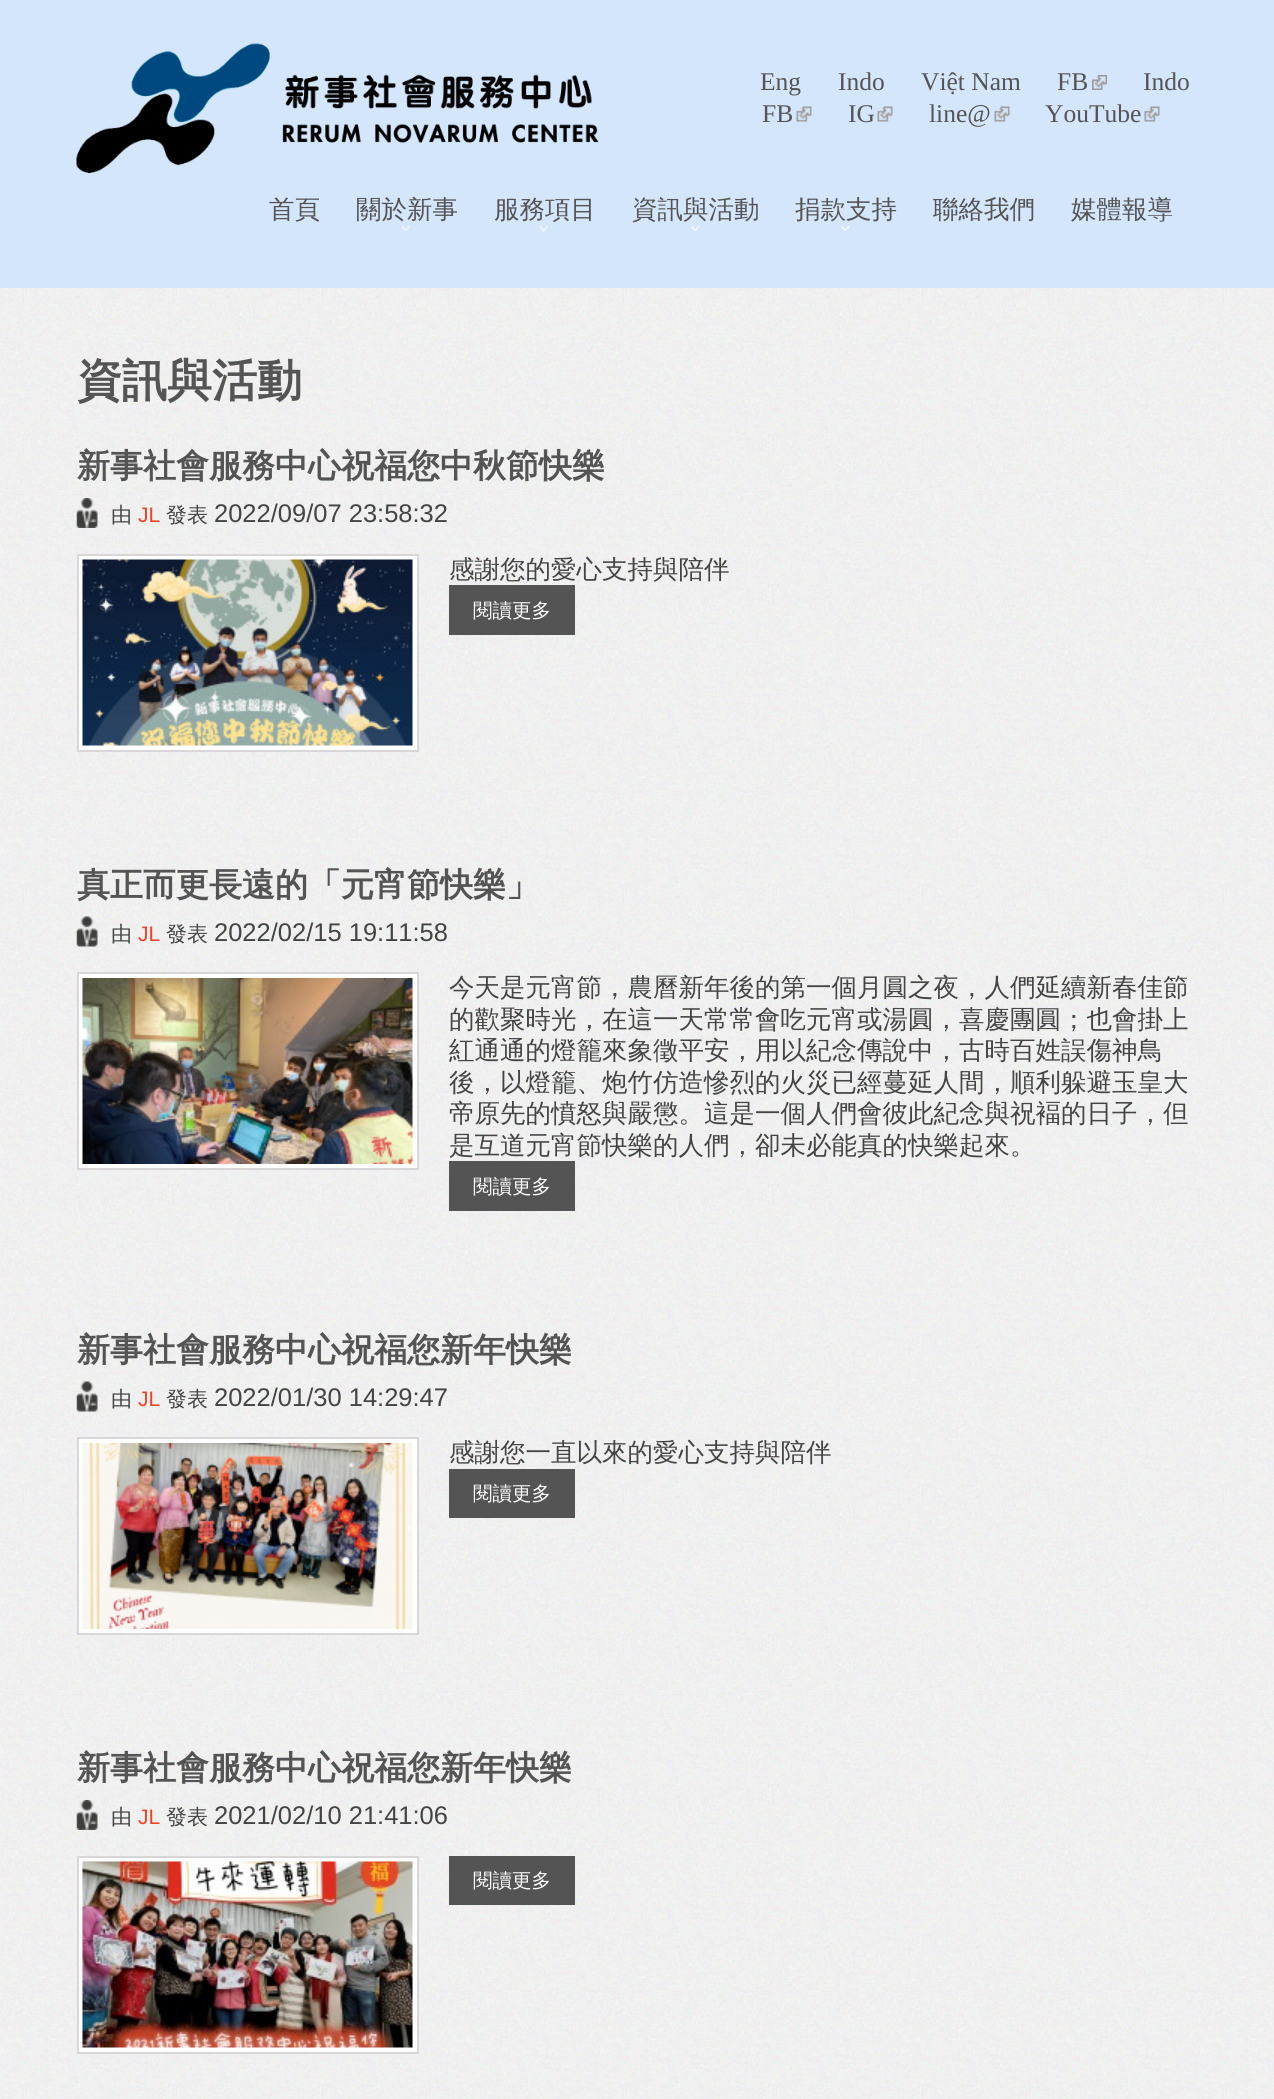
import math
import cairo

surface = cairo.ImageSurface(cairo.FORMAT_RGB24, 1274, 2099)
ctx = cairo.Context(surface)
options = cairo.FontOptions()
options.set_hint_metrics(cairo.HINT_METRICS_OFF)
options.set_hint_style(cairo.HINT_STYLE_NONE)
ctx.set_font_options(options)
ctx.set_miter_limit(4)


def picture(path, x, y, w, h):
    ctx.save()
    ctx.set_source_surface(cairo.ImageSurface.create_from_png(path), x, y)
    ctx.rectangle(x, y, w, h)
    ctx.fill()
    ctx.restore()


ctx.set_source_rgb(1, 1, 1)
ctx.paint()
ctx.set_source_rgb(0.831, 0.902, 0.988)
ctx.rectangle(0, 0, 1274, 288)
ctx.fill()
picture("img1.png", 76, 43, 523, 131)
ctx.select_font_face("Liberation Serif")
ctx.set_font_size(25.5)
ctx.set_source_rgb(0.329, 0.329, 0.329)
ctx.move_to(760, 90)
ctx.show_text("Eng")
ctx.move_to(838, 90)
ctx.show_text("Indo")
ctx.move_to(921, 90)
ctx.show_text("Việt Nam")
ctx.move_to(1057, 90)
ctx.show_text("FB")
picture("img2.png", 1092, 75, 15, 15)
ctx.move_to(1143, 90)
ctx.show_text("Indo")
ctx.move_to(762, 122)
ctx.show_text("FB")
picture("img3.png", 796, 106, 16, 16)
ctx.move_to(848, 122)
ctx.show_text("IG")
picture("img3.png", 877, 106, 16, 16)
ctx.move_to(929, 122)
ctx.show_text("line@")
picture("img3.png", 994, 106, 16, 16)
ctx.move_to(1045, 122)
ctx.show_text("YouTube")
picture("img4.png", 1144, 106, 16, 16)
ctx.select_font_face("WenQuanYi Zen Hei Medium")
ctx.move_to(269, 218)
ctx.show_text("首頁")
ctx.move_to(356, 218)
ctx.show_text("關於新事")
picture("img5.png", 402, 226, 8, 5)
ctx.move_to(494, 218)
ctx.show_text("服務項目")
picture("img6.png", 540, 226, 8, 5)
ctx.move_to(632, 218)
ctx.show_text("資訊與活動")
picture("img7.png", 691, 226, 8, 5)
ctx.move_to(795, 218)
ctx.show_text("捐款支持")
picture("img8.png", 841, 226, 8, 5)
ctx.move_to(933, 218)
ctx.show_text("聯絡我們")
ctx.move_to(1071, 218)
ctx.show_text("媒體報導")
picture("img9.png", 0, 288, 1274, 1811)
ctx.select_font_face("WenQuanYi Zen Hei", cairo.FONT_SLANT_NORMAL, cairo.FONT_WEIGHT_BOLD)
ctx.set_font_size(45)
ctx.move_to(77, 396)
ctx.show_text("資訊與活動")
ctx.set_font_size(33)
ctx.move_to(77, 477)
ctx.show_text("新事社會服務中心祝福您中秋節快樂")
picture("img10.png", 76, 498, 22, 30)
ctx.select_font_face("WenQuanYi Zen Hei Medium")
ctx.set_font_size(21)
ctx.set_source_rgb(0.267, 0.267, 0.267)
ctx.move_to(111, 522)
ctx.show_text("由")
ctx.select_font_face("Liberation Sans")
ctx.set_source_rgb(0.937, 0.259, 0.141)
ctx.move_to(138, 522)
ctx.show_text("JL")
ctx.select_font_face("WenQuanYi Zen Hei Medium")
ctx.set_source_rgb(0.267, 0.267, 0.267)
ctx.move_to(166, 522)
ctx.show_text("發表")
ctx.select_font_face("Liberation Sans")
ctx.set_font_size(25.5)
ctx.move_to(214, 522)
ctx.show_text("2022/09/07 23:58:32")
ctx.set_source_rgb(1, 1, 1)
ctx.rectangle(78, 555, 340, 196)
ctx.fill_preserve()
ctx.set_source_rgb(0.851, 0.839, 0.851)
ctx.stroke()
picture("img11.png", 82, 559, 331, 187)
ctx.select_font_face("WenQuanYi Zen Hei Medium")
ctx.set_source_rgb(0.267, 0.267, 0.267)
ctx.move_to(449, 578)
ctx.show_text("感謝您的愛心支持與陪伴")
ctx.set_source_rgb(0.329, 0.329, 0.329)
ctx.rectangle(449, 585, 126, 50)
ctx.fill()
ctx.set_font_size(19.5)
ctx.set_source_rgb(1, 1, 1)
ctx.move_to(473, 617)
ctx.show_text("閱讀更多")
ctx.select_font_face("WenQuanYi Zen Hei", cairo.FONT_SLANT_NORMAL, cairo.FONT_WEIGHT_BOLD)
ctx.set_font_size(33)
ctx.set_source_rgb(0.329, 0.329, 0.329)
ctx.move_to(77, 896)
ctx.show_text("真正而更長遠的「元宵節快樂」")
picture("img12.png", 76, 916, 22, 31)
ctx.select_font_face("WenQuanYi Zen Hei Medium")
ctx.set_font_size(21)
ctx.set_source_rgb(0.267, 0.267, 0.267)
ctx.move_to(111, 941)
ctx.show_text("由")
ctx.select_font_face("Liberation Sans")
ctx.set_source_rgb(0.937, 0.259, 0.141)
ctx.move_to(138, 941)
ctx.show_text("JL")
ctx.select_font_face("WenQuanYi Zen Hei Medium")
ctx.set_source_rgb(0.267, 0.267, 0.267)
ctx.move_to(166, 941)
ctx.show_text("發表")
ctx.select_font_face("Liberation Sans")
ctx.set_font_size(25.5)
ctx.move_to(214, 941)
ctx.show_text("2022/02/15 19:11:58")
ctx.set_source_rgb(1, 1, 1)
ctx.rectangle(78, 973, 340, 196)
ctx.fill_preserve()
ctx.set_source_rgb(0.851, 0.839, 0.851)
ctx.stroke()
picture("img13.png", 82, 978, 331, 186)
ctx.select_font_face("WenQuanYi Zen Hei Medium")
ctx.set_source_rgb(0.267, 0.267, 0.267)
ctx.move_to(449, 996)
ctx.show_text("今天是元宵節，農曆新年後的第一個月圓之夜，人們延續新春佳節")
ctx.move_to(449, 1028)
ctx.show_text("的歡聚時光，在這一天常常會吃元宵或湯圓，喜慶團圓；也會掛上")
ctx.move_to(449, 1059)
ctx.show_text("紅通通的燈籠來象徵平安，用以紀念傳說中，古時百姓誤傷神鳥")
ctx.move_to(449, 1091)
ctx.show_text("後，以燈籠、炮竹仿造慘烈的火災已經蔓延人間，順利躲避玉皇大")
ctx.move_to(449, 1122)
ctx.show_text("帝原先的憤怒與嚴懲。這是一個人們會彼此紀念與祝褔的日子，但")
ctx.move_to(449, 1154)
ctx.show_text("是互道元宵節快樂的人們，卻未必能真的快樂起來。")
ctx.set_source_rgb(0.329, 0.329, 0.329)
ctx.rectangle(449, 1161, 126, 50)
ctx.fill()
ctx.set_font_size(19.5)
ctx.set_source_rgb(1, 1, 1)
ctx.move_to(473, 1193)
ctx.show_text("閱讀更多")
ctx.select_font_face("WenQuanYi Zen Hei", cairo.FONT_SLANT_NORMAL, cairo.FONT_WEIGHT_BOLD)
ctx.set_font_size(33)
ctx.set_source_rgb(0.329, 0.329, 0.329)
ctx.move_to(77, 1361)
ctx.show_text("新事社會服務中心祝福您新年快樂")
picture("img14.png", 76, 1381, 22, 31)
ctx.select_font_face("WenQuanYi Zen Hei Medium")
ctx.set_font_size(21)
ctx.set_source_rgb(0.267, 0.267, 0.267)
ctx.move_to(111, 1406)
ctx.show_text("由")
ctx.select_font_face("Liberation Sans")
ctx.set_source_rgb(0.937, 0.259, 0.141)
ctx.move_to(138, 1406)
ctx.show_text("JL")
ctx.select_font_face("WenQuanYi Zen Hei Medium")
ctx.set_source_rgb(0.267, 0.267, 0.267)
ctx.move_to(166, 1406)
ctx.show_text("發表")
ctx.select_font_face("Liberation Sans")
ctx.set_font_size(25.5)
ctx.move_to(214, 1406)
ctx.show_text("2022/01/30 14:29:47")
ctx.set_source_rgb(1, 1, 1)
ctx.rectangle(78, 1438, 340, 196)
ctx.fill_preserve()
ctx.set_source_rgb(0.851, 0.839, 0.851)
ctx.stroke()
picture("img15.png", 82, 1443, 331, 186)
ctx.select_font_face("WenQuanYi Zen Hei Medium")
ctx.set_source_rgb(0.267, 0.267, 0.267)
ctx.move_to(449, 1461)
ctx.show_text("感謝您一直以來的愛心支持與陪伴")
ctx.set_source_rgb(0.329, 0.329, 0.329)
ctx.rectangle(449, 1469, 126, 49)
ctx.fill()
ctx.set_font_size(19.5)
ctx.set_source_rgb(1, 1, 1)
ctx.move_to(473, 1500)
ctx.show_text("閱讀更多")
ctx.select_font_face("WenQuanYi Zen Hei", cairo.FONT_SLANT_NORMAL, cairo.FONT_WEIGHT_BOLD)
ctx.set_font_size(33)
ctx.set_source_rgb(0.329, 0.329, 0.329)
ctx.move_to(77, 1779)
ctx.show_text("新事社會服務中心祝福您新年快樂")
picture("img16.png", 76, 1800, 22, 30)
ctx.select_font_face("WenQuanYi Zen Hei Medium")
ctx.set_font_size(21)
ctx.set_source_rgb(0.267, 0.267, 0.267)
ctx.move_to(111, 1824)
ctx.show_text("由")
ctx.select_font_face("Liberation Sans")
ctx.set_source_rgb(0.937, 0.259, 0.141)
ctx.move_to(138, 1824)
ctx.show_text("JL")
ctx.select_font_face("WenQuanYi Zen Hei Medium")
ctx.set_source_rgb(0.267, 0.267, 0.267)
ctx.move_to(166, 1824)
ctx.show_text("發表")
ctx.select_font_face("Liberation Sans")
ctx.set_font_size(25.5)
ctx.move_to(214, 1824)
ctx.show_text("2021/02/10 21:41:06")
ctx.set_source_rgb(1, 1, 1)
ctx.rectangle(78, 1857, 340, 196)
ctx.fill_preserve()
ctx.set_source_rgb(0.851, 0.839, 0.851)
ctx.stroke()
picture("img17.png", 82, 1861, 331, 187)
ctx.set_source_rgb(0.329, 0.329, 0.329)
ctx.rectangle(449, 1856, 126, 49)
ctx.fill()
ctx.select_font_face("WenQuanYi Zen Hei Medium")
ctx.set_font_size(19.5)
ctx.set_source_rgb(1, 1, 1)
ctx.move_to(473, 1887)
ctx.show_text("閱讀更多")
surface.write_to_png("page.png")
